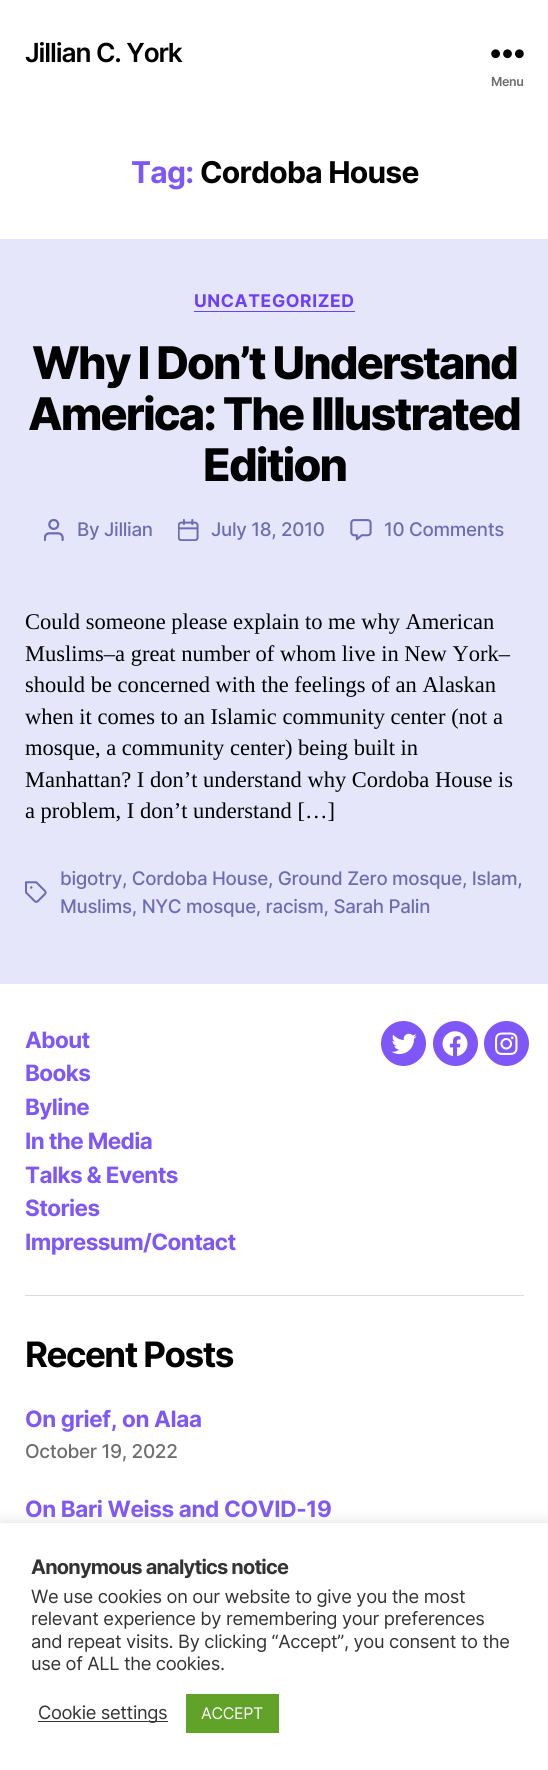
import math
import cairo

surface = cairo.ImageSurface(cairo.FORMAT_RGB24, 548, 1770)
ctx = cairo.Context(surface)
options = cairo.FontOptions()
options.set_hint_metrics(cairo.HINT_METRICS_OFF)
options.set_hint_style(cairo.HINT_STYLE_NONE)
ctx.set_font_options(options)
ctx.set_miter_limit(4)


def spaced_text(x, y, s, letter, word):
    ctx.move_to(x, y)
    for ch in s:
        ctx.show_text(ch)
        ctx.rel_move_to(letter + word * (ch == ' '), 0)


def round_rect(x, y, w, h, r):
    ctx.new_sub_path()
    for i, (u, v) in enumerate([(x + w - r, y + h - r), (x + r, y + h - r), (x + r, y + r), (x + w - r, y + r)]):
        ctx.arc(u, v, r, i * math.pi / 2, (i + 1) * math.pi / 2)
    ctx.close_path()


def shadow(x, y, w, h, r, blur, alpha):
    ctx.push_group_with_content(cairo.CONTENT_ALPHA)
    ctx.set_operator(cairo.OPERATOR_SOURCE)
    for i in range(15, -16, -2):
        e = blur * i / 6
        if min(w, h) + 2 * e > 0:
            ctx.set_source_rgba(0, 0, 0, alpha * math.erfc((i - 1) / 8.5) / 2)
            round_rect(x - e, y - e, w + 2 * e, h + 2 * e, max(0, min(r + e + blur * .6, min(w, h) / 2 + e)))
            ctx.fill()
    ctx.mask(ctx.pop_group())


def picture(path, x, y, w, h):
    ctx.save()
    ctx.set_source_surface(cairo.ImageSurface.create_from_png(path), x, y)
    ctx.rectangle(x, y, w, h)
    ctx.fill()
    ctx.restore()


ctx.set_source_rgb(0.902, 0.902, 0.98)
ctx.paint()
ctx.set_source_rgb(1, 1, 1)
ctx.rectangle(0, 0, 548, 239)
ctx.fill()
ctx.select_font_face("Inter SemiBold")
ctx.set_font_size(26.25)
ctx.set_source_rgb(0, 0, 0)
spaced_text(25, 62, "Jillian C. York", -1.1, 0)
picture("img1.png", 491, 49, 33, 10)
ctx.set_font_size(12.5)
ctx.set_source_rgb(0.427, 0.427, 0.427)
spaced_text(491, 86, "Menu", -0.35, 0)
ctx.select_font_face("Inter", cairo.FONT_SLANT_NORMAL, cairo.FONT_WEIGHT_BOLD)
ctx.set_font_size(30)
ctx.set_source_rgb(0.498, 0.341, 0.973)
spaced_text(131, 183, "Tag:", -0.75, 0)
ctx.set_source_rgb(0, 0, 0)
spaced_text(200, 183, "Cordoba House", -0.75, 0)
ctx.set_source_rgb(0.431, 0.243, 0.996)
ctx.rectangle(194, 311, 161, 1)
ctx.fill()
ctx.set_font_size(17.5)
spaced_text(194, 307, "UNCATEGORIZED", 0.6, 0)
ctx.select_font_face("Inter ExtraBold")
ctx.set_font_size(45)
ctx.set_source_rgb(0, 0, 0)
spaced_text(32, 379, "Why I Don’t Understand", -1.9, 0)
spaced_text(28, 430, "America: The Illustrated", -1.9, 0)
spaced_text(203, 481, "Edition", -1.9, 0)
picture("img2.png", 44, 519, 20, 22)
ctx.select_font_face("Inter Medium")
ctx.set_font_size(18.75)
ctx.set_source_rgb(0.424, 0.424, 0.714)
spaced_text(77, 536, "By Jillian", -0.3, 0)
picture("img3.png", 178, 519, 21, 22)
spaced_text(211, 536, "July 18, 2010", -0.3, 0)
picture("img4.png", 350, 519, 22, 22)
spaced_text(384, 536, "10 Comments", -0.3, 0)
ctx.select_font_face("Liberation Serif")
ctx.set_font_size(22.5)
ctx.set_source_rgb(0, 0, 0)
ctx.move_to(25, 629)
ctx.show_text("Could someone please explain to me why American")
ctx.move_to(25, 661)
ctx.show_text("Muslims–a great number of whom live in New York–")
ctx.move_to(25, 692)
ctx.show_text("should be concerned with the feelings of an Alaskan")
ctx.move_to(25, 724)
ctx.show_text("when it comes to an Islamic community center (not a")
ctx.move_to(25, 755)
ctx.show_text("mosque, a community center) being built in")
ctx.move_to(25, 787)
ctx.show_text("Manhattan? I don’t understand why Cordoba House is")
ctx.move_to(25, 818)
ctx.show_text("a problem, I don’t understand […]")
picture("img5.png", 25, 881, 22, 22)
ctx.select_font_face("Inter Medium")
ctx.set_font_size(18.75)
ctx.set_source_rgb(0.424, 0.424, 0.714)
spaced_text(60, 885, "bigotry, Cordoba House, Ground Zero mosque, Islam,", -0.3, 0)
spaced_text(60, 913, "Muslims, NYC mosque, racism, Sarah Palin", -0.3, 0)
ctx.set_source_rgb(1, 1, 1)
ctx.rectangle(0, 984, 548, 539)
ctx.fill()
ctx.set_source_rgb(0.859, 0.859, 0.859)
ctx.rectangle(25, 1295, 499, 1)
ctx.fill()
ctx.select_font_face("Inter", cairo.FONT_SLANT_NORMAL, cairo.FONT_WEIGHT_BOLD)
ctx.set_font_size(22.5)
ctx.set_source_rgb(0.498, 0.341, 0.973)
spaced_text(25, 1048, "About", -0.6, 0)
spaced_text(25, 1081, "Books", -0.6, 0)
spaced_text(25, 1115, "Byline", -0.6, 0)
spaced_text(25, 1149, "In the Media", -0.6, 0)
spaced_text(25, 1183, "Talks & Events", -0.6, 0)
spaced_text(25, 1216, "Stories", -0.6, 0)
spaced_text(25, 1250, "Impressum/Contact", -0.6, 0)
ctx.new_path()
ctx.arc(403.5, 1043.5, 22.5, 0, 2 * math.pi)
ctx.fill()
picture("img6.png", 391, 1033, 26, 22)
ctx.arc(455.5, 1043.5, 22.5, 0, 2 * math.pi)
ctx.fill()
picture("img7.png", 442, 1031, 26, 26)
ctx.arc(506.5, 1043.5, 22.5, 0, 2 * math.pi)
ctx.fill()
picture("img8.png", 495, 1032, 23, 23)
ctx.set_font_size(35)
ctx.set_source_rgb(0, 0, 0)
spaced_text(25, 1367, "Recent Posts", -1.5, 0)
ctx.set_font_size(22.5)
ctx.set_source_rgb(0.498, 0.341, 0.973)
spaced_text(25, 1427, "On grief, on Alaa", -0.35, 0)
ctx.select_font_face("Inter Medium")
ctx.set_font_size(19)
ctx.set_source_rgb(0.427, 0.427, 0.427)
spaced_text(25, 1458, "October 19, 2022", -0.35, 0)
ctx.select_font_face("Inter", cairo.FONT_SLANT_NORMAL, cairo.FONT_WEIGHT_BOLD)
ctx.set_font_size(22.5)
ctx.set_source_rgb(0.498, 0.341, 0.973)
spaced_text(25, 1517, "On Bari Weiss and COVID-19", -0.35, 0)
ctx.set_source_rgb(0.675, 0.671, 0.671)
shadow(0, 1521, 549, 248, 0, 6, 0.3)
ctx.set_source_rgb(1, 1, 1)
ctx.rectangle(0, 1523, 548, 247)
ctx.fill()
ctx.set_font_size(20)
ctx.set_source_rgb(0.2, 0.2, 0.2)
spaced_text(31, 1574, "Anonymous analytics notice", -0.8, 0)
ctx.select_font_face("Inter")
ctx.set_font_size(18.3)
spaced_text(31, 1603, "We use cookies on our website to give you the most", -0.35, 0)
spaced_text(31, 1625, "relevant experience by remembering your preferences", -0.35, 0)
spaced_text(31, 1648, "and repeat visits. By clicking “Accept”, you consent to the", -0.35, 0)
spaced_text(31, 1670, "use of ALL the cookies.", -0.35, 0)
ctx.rectangle(38, 1721, 130, 1)
ctx.fill()
spaced_text(38, 1719, "Cookie settings", -0.35, 0)
ctx.set_source_rgb(0.38, 0.635, 0.161)
ctx.rectangle(186, 1694, 93, 39)
ctx.fill()
ctx.set_font_size(16)
ctx.set_source_rgb(1, 1, 1)
spaced_text(201, 1719, "ACCEPT", -0.35, 0)
surface.write_to_png("page.png")
